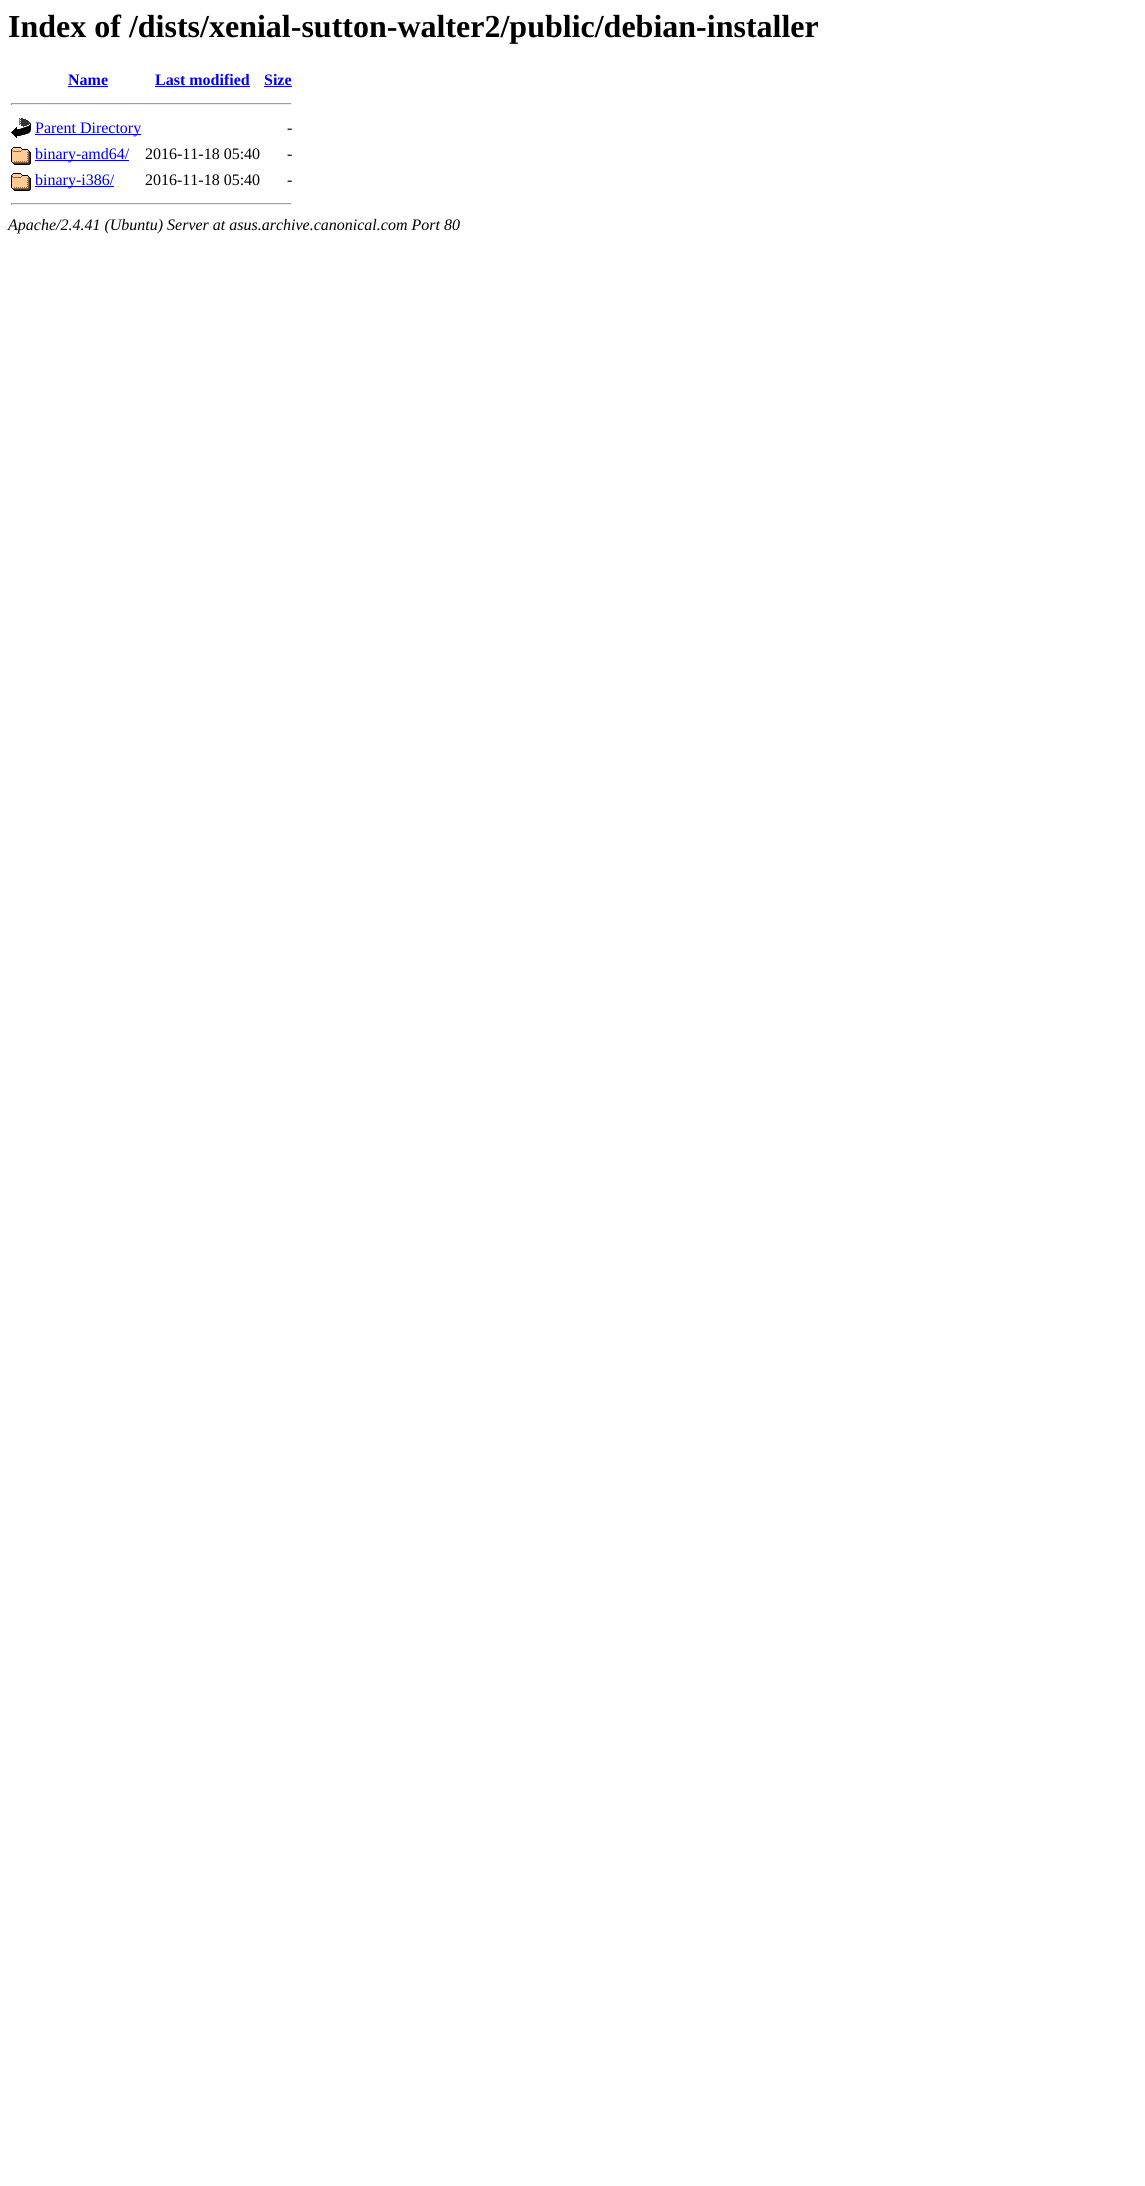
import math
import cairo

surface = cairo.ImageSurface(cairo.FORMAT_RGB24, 1145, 2186)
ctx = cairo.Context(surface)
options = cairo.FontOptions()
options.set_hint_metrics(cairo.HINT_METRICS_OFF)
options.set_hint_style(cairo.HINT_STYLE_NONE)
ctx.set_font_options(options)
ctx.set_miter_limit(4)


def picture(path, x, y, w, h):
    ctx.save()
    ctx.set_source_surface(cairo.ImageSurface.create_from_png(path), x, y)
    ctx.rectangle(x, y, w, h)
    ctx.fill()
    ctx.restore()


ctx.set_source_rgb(1, 1, 1)
ctx.paint()
ctx.select_font_face("Liberation Serif", cairo.FONT_SLANT_NORMAL, cairo.FONT_WEIGHT_BOLD)
ctx.set_font_size(32)
ctx.set_source_rgb(0, 0, 0)
ctx.move_to(8, 37)
ctx.show_text("Index of /dists/xenial-sutton-walter2/public/debian-installer")
ctx.set_font_size(16)
ctx.set_source_rgb(0, 0, 0.933)
ctx.move_to(68, 85)
ctx.show_text("Name")
ctx.rectangle(68, 86, 40, 1)
ctx.fill()
ctx.move_to(155, 85)
ctx.show_text("Last modified")
ctx.rectangle(155, 86, 95, 1)
ctx.fill()
ctx.move_to(264, 85)
ctx.show_text("Size")
ctx.rectangle(264, 86, 28, 1)
ctx.fill()
ctx.set_source_rgb(0.624, 0.624, 0.624)
ctx.rectangle(11, 103, 281, 1)
ctx.fill()
ctx.set_source_rgb(0.933, 0.933, 0.933)
ctx.rectangle(291, 103, 1, 2)
ctx.fill()
ctx.rectangle(11, 104, 281, 1)
ctx.fill()
ctx.set_source_rgb(0.624, 0.624, 0.624)
ctx.rectangle(11, 103, 1, 2)
ctx.fill()
picture("img1.png", 11, 118, 20, 20)
ctx.set_source_rgb(0, 0, 0.933)
ctx.rectangle(35, 134, 106, 1)
ctx.fill()
ctx.select_font_face("Liberation Serif")
ctx.move_to(35, 133)
ctx.show_text("Parent Directory")
ctx.set_source_rgb(0, 0, 0)
ctx.move_to(287, 133)
ctx.show_text("-")
picture("img2.png", 11, 147, 20, 18)
ctx.set_source_rgb(0, 0, 0.933)
ctx.rectangle(35, 160, 94, 1)
ctx.fill()
ctx.move_to(35, 159)
ctx.show_text("binary-amd64/")
ctx.set_source_rgb(0, 0, 0)
ctx.move_to(145, 159)
ctx.show_text("2016-11-18 05:40")
ctx.move_to(287, 159)
ctx.show_text("-")
picture("img2.png", 11, 173, 20, 18)
ctx.set_source_rgb(0, 0, 0.933)
ctx.rectangle(35, 186, 79, 1)
ctx.fill()
ctx.move_to(35, 185)
ctx.show_text("binary-i386/")
ctx.set_source_rgb(0, 0, 0)
ctx.move_to(145, 185)
ctx.show_text("2016-11-18 05:40")
ctx.move_to(287, 185)
ctx.show_text("-")
ctx.set_source_rgb(0.624, 0.624, 0.624)
ctx.rectangle(11, 203, 281, 1)
ctx.fill()
ctx.set_source_rgb(0.933, 0.933, 0.933)
ctx.rectangle(291, 203, 1, 2)
ctx.fill()
ctx.rectangle(11, 204, 281, 1)
ctx.fill()
ctx.set_source_rgb(0.624, 0.624, 0.624)
ctx.rectangle(11, 203, 1, 2)
ctx.fill()
ctx.select_font_face("Liberation Serif", cairo.FONT_SLANT_ITALIC)
ctx.set_source_rgb(0, 0, 0)
ctx.move_to(8, 230)
ctx.show_text("Apache/2.4.41 (Ubuntu) Server at asus.archive.canonical.com Port 80")
surface.write_to_png("page.png")
